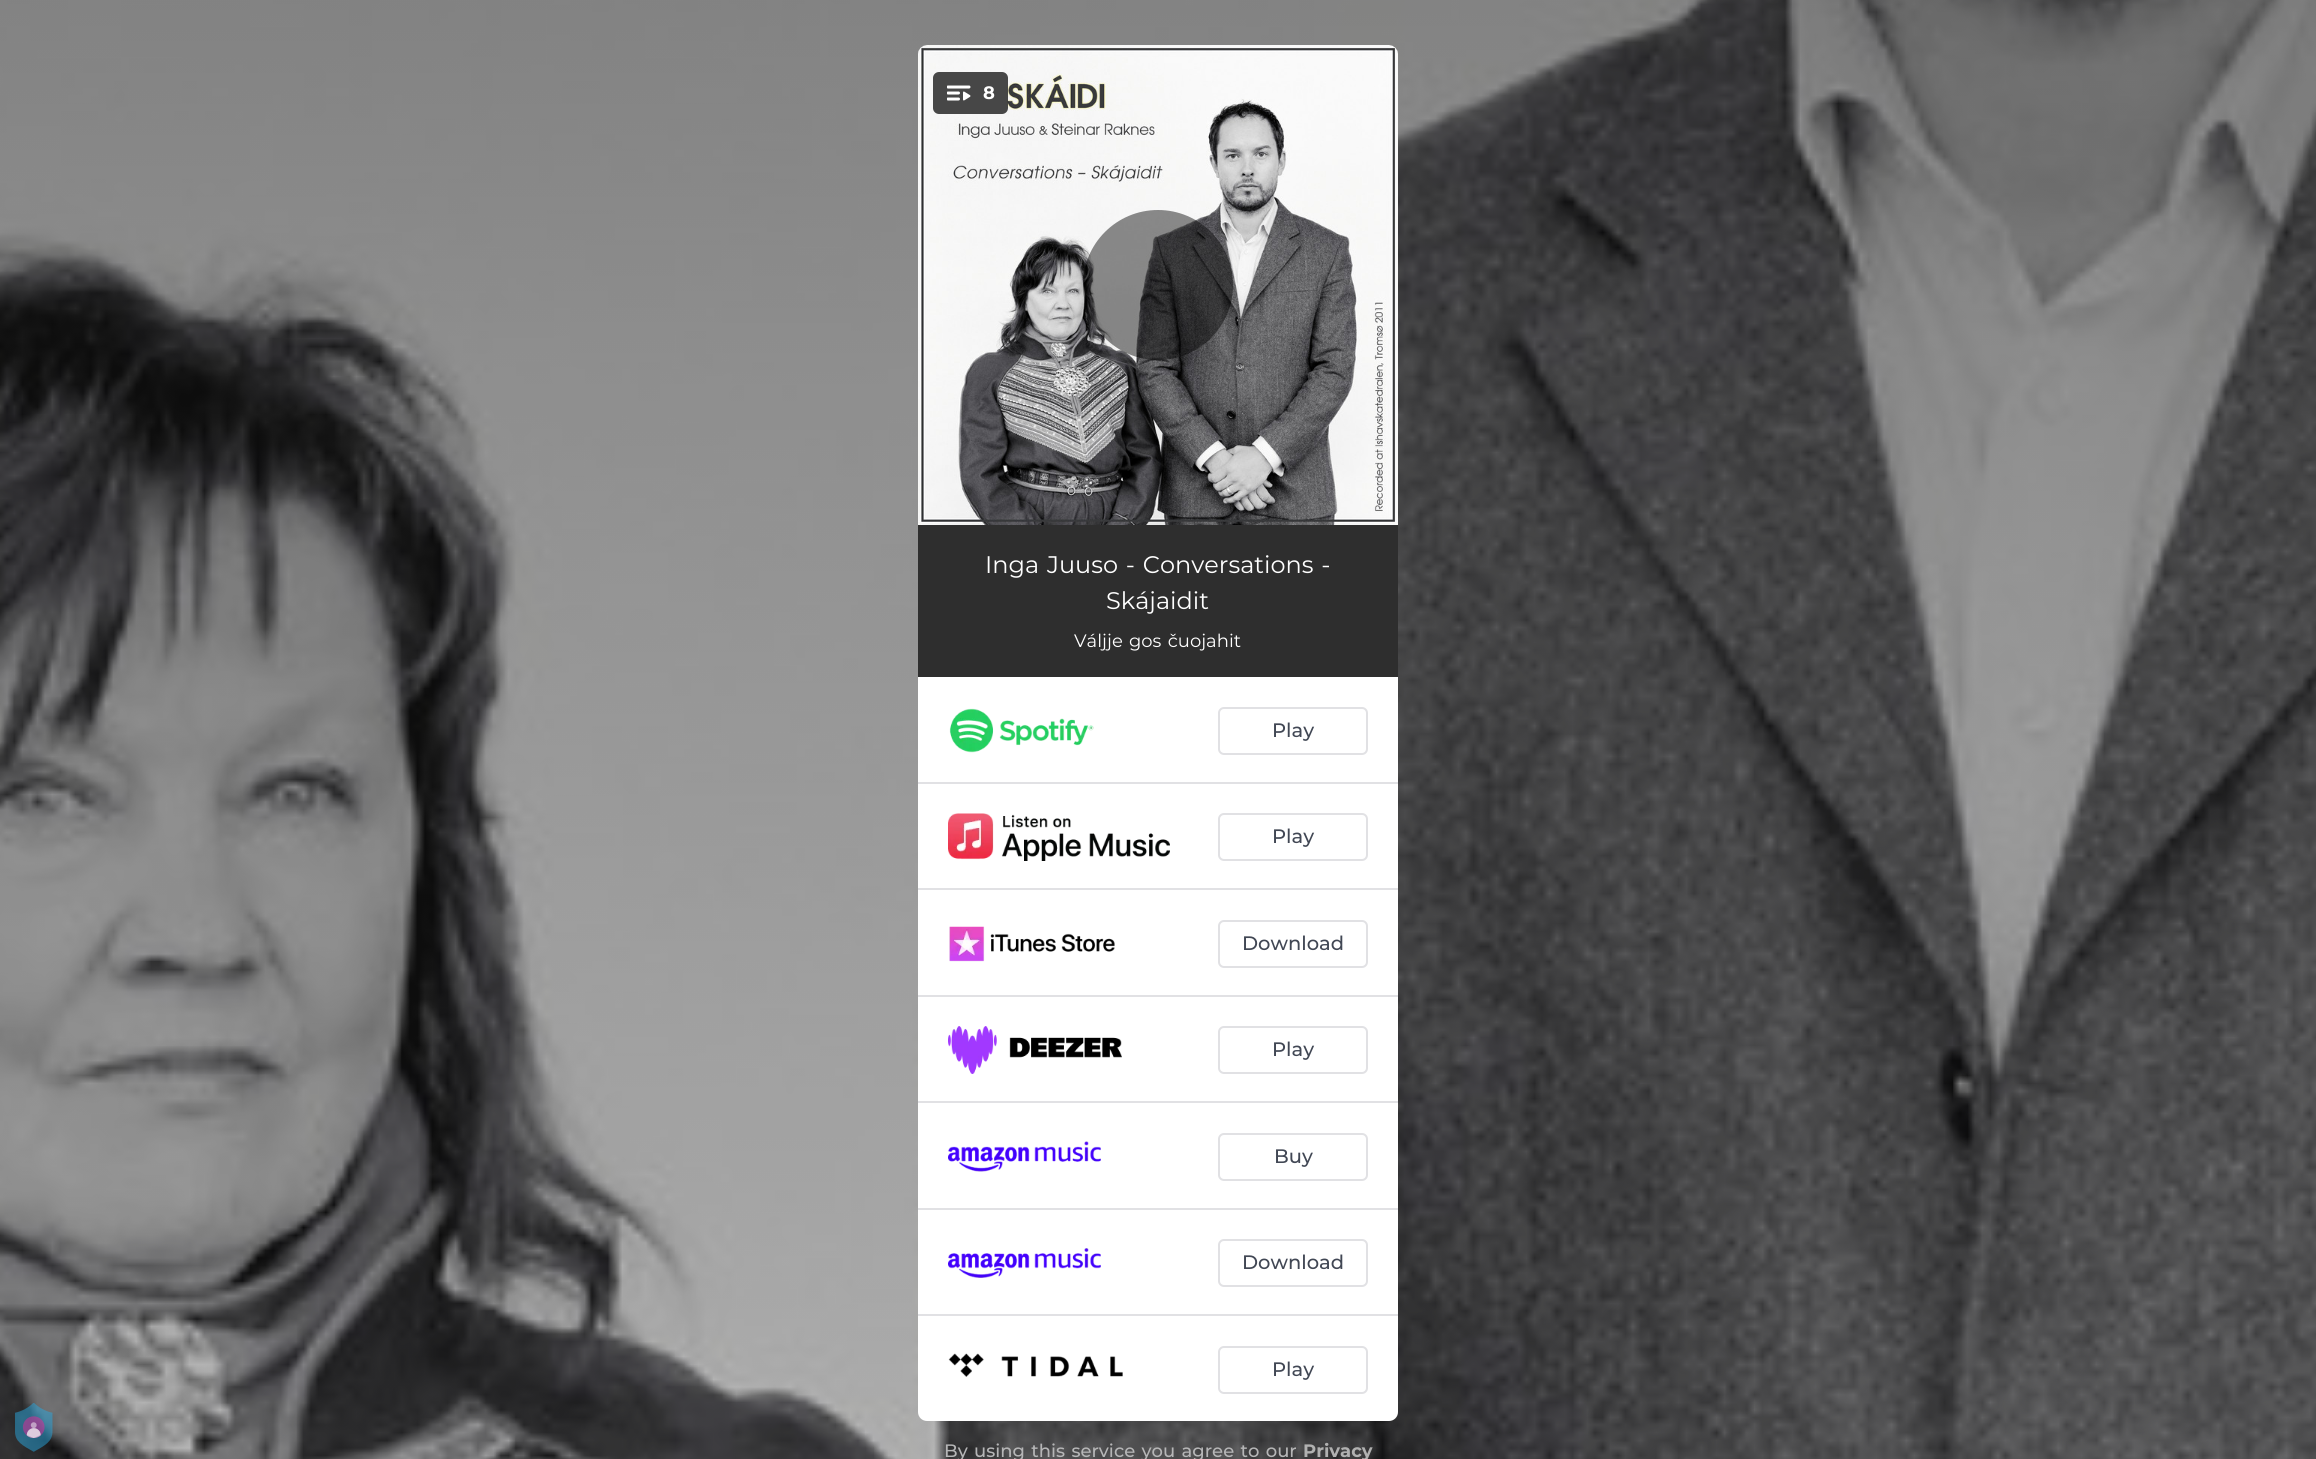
import math
import cairo

surface = cairo.ImageSurface(cairo.FORMAT_RGB24, 2316, 1459)
ctx = cairo.Context(surface)
options = cairo.FontOptions()
options.set_hint_metrics(cairo.HINT_METRICS_OFF)
options.set_hint_style(cairo.HINT_STYLE_NONE)
ctx.set_font_options(options)
ctx.set_miter_limit(4)


def spaced_text(x, y, s, letter, word):
    ctx.move_to(x, y)
    for ch in s:
        ctx.show_text(ch)
        ctx.rel_move_to(letter + word * (ch == ' '), 0)


def round_rect(x, y, w, h, r):
    ctx.new_sub_path()
    for i, (u, v) in enumerate([(x + w - r, y + h - r), (x + r, y + h - r), (x + r, y + r), (x + w - r, y + r)]):
        ctx.arc(u, v, r, i * math.pi / 2, (i + 1) * math.pi / 2)
    ctx.close_path()


def picture(path, x, y, w, h):
    ctx.save()
    ctx.set_source_surface(cairo.ImageSurface.create_from_png(path), x, y)
    ctx.rectangle(x, y, w, h)
    ctx.fill()
    ctx.restore()


ctx.set_source_rgb(1, 1, 1)
ctx.paint()
picture("img2.png", 0, 0, 2316, 1459)
picture("img1.png", 15, 1403, 38, 49)
picture("img3.png", 918, 45, 480, 480)
ctx.set_source_rgba(0.157, 0.157, 0.157, 0.85)
round_rect(933, 72, 75, 42, 6)
ctx.fill()
picture("img4.png", 947, 85, 24, 16)
ctx.select_font_face("Montserrat", cairo.FONT_SLANT_NORMAL, cairo.FONT_WEIGHT_BOLD)
ctx.set_font_size(18)
ctx.set_source_rgb(1, 1, 1)
ctx.move_to(983, 99)
ctx.show_text("8")
ctx.set_source_rgba(0, 0, 0, 0.45)
ctx.new_path()
ctx.arc(1158, 285, 75, 0, 2 * math.pi)
ctx.fill()
ctx.set_source_rgb(0.18, 0.18, 0.18)
ctx.rectangle(918, 525, 480, 152)
ctx.fill()
ctx.select_font_face("Montserrat")
ctx.set_font_size(24)
ctx.set_source_rgb(1, 1, 1)
spaced_text(985, 573, "Inga Juuso - Conversations -", 0, 1.5)
ctx.move_to(1106, 609)
ctx.show_text("Skájaidit")
ctx.set_font_size(18)
spaced_text(1074, 647, "Váljje gos čuojahit", 0, 1.5)
ctx.new_path()
ctx.move_to(918, 677)
ctx.line_to(1398, 677)
ctx.line_to(1398, 1412)
ctx.curve_to(1398, 1417, 1394, 1421, 1389, 1421)
ctx.line_to(927, 1421)
ctx.curve_to(922, 1421, 918, 1417, 918, 1412)
ctx.close_path()
ctx.fill()
ctx.set_source_rgb(0.882, 0.882, 0.894)
ctx.rectangle(918, 782, 480, 2)
ctx.fill()
picture("img5.png", 949, 708, 145, 45)
round_rect(1219, 708, 148, 46, 5)
ctx.stroke()
ctx.select_font_face("Montserrat Medium")
ctx.set_font_size(19.5)
ctx.set_source_rgb(0.255, 0.278, 0.329)
ctx.move_to(1272, 737)
ctx.show_text("Play")
ctx.set_source_rgb(0.882, 0.882, 0.894)
ctx.rectangle(918, 888, 480, 2)
ctx.fill()
picture("img6.png", 948, 813, 222, 48)
round_rect(1219, 814, 148, 46, 5)
ctx.stroke()
ctx.set_source_rgb(0.255, 0.278, 0.329)
ctx.move_to(1272, 843)
ctx.show_text("Play")
ctx.set_source_rgb(0.882, 0.882, 0.894)
ctx.rectangle(918, 995, 480, 2)
ctx.fill()
picture("img7.png", 949, 926, 166, 36)
round_rect(1219, 921, 148, 46, 5)
ctx.stroke()
ctx.set_source_rgb(0.255, 0.278, 0.329)
ctx.move_to(1242, 950)
ctx.show_text("Download")
ctx.set_source_rgb(0.882, 0.882, 0.894)
ctx.rectangle(918, 1101, 480, 2)
ctx.fill()
picture("img8.png", 948, 1026, 174, 48)
round_rect(1219, 1027, 148, 46, 5)
ctx.stroke()
ctx.set_source_rgb(0.255, 0.278, 0.329)
ctx.move_to(1272, 1056)
ctx.show_text("Play")
ctx.set_source_rgb(0.882, 0.882, 0.894)
ctx.rectangle(918, 1208, 480, 2)
ctx.fill()
picture("img9.png", 948, 1141, 153, 31)
round_rect(1219, 1134, 148, 46, 5)
ctx.stroke()
ctx.set_source_rgb(0.255, 0.278, 0.329)
ctx.move_to(1274, 1163)
ctx.show_text("Buy")
ctx.set_source_rgb(0.882, 0.882, 0.894)
ctx.rectangle(918, 1314, 480, 2)
ctx.fill()
picture("img10.png", 948, 1248, 153, 30)
round_rect(1219, 1240, 148, 46, 5)
ctx.stroke()
ctx.set_source_rgb(0.255, 0.278, 0.329)
ctx.move_to(1242, 1269)
ctx.show_text("Download")
picture("img11.png", 948, 1353, 175, 24)
round_rect(1219, 1347, 148, 46, 5)
ctx.set_source_rgb(0.882, 0.882, 0.894)
ctx.stroke()
ctx.set_source_rgb(0.255, 0.278, 0.329)
ctx.move_to(1272, 1376)
ctx.show_text("Play")
ctx.set_font_size(18)
ctx.set_source_rgb(0.714, 0.714, 0.718)
spaced_text(944, 1457, "By using this service you agree to our", 0, 1.5)
ctx.select_font_face("Montserrat", cairo.FONT_SLANT_NORMAL, cairo.FONT_WEIGHT_BOLD)
ctx.set_source_rgb(0.694, 0.694, 0.694)
ctx.move_to(1303, 1457)
ctx.show_text("Privacy")
surface.write_to_png("page.png")
